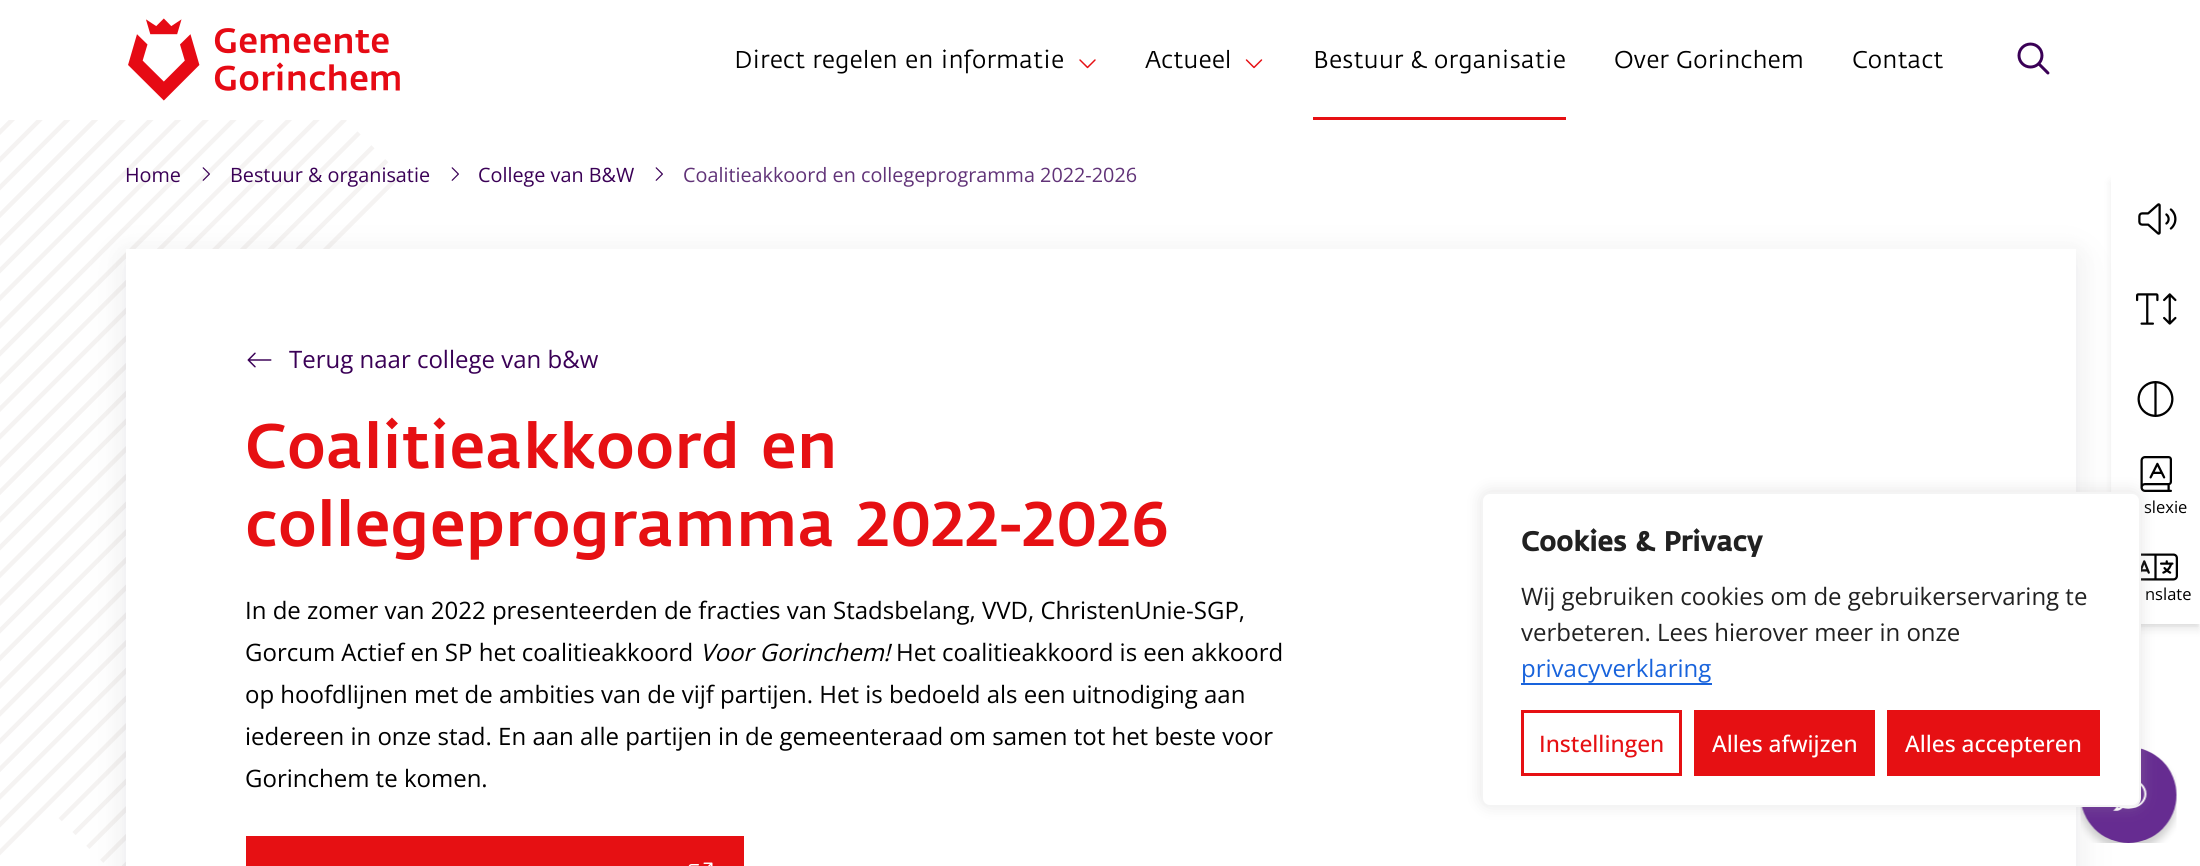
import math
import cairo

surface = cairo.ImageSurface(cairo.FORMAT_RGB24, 2200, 866)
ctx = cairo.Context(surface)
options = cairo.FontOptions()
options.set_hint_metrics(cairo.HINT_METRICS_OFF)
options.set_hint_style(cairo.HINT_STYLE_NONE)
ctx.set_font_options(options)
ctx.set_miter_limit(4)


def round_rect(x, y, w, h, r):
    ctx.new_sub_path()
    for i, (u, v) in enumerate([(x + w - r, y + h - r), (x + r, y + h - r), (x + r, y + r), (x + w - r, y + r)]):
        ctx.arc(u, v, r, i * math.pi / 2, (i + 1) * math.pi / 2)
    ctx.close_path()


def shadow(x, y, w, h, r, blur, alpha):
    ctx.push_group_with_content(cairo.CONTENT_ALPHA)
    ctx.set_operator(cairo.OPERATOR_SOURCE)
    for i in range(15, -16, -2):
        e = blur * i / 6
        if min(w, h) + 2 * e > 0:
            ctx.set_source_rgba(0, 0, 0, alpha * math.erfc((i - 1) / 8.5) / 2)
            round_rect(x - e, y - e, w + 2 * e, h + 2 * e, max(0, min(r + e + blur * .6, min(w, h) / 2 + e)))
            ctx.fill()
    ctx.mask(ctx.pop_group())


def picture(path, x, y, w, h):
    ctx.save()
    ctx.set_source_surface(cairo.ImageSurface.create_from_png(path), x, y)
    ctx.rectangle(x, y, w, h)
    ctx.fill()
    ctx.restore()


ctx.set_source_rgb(1, 1, 1)
ctx.paint()
picture("img1.png", 128, 18, 272, 83)
ctx.select_font_face("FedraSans")
ctx.set_font_size(24)
ctx.set_source_rgb(0, 0, 0)
ctx.move_to(734, 68)
ctx.show_text("Direct regelen en informatie")
picture("img2.png", 1079, 59, 17, 10)
ctx.move_to(1145, 68)
ctx.show_text("Actueel")
picture("img3.png", 1245, 59, 18, 10)
ctx.move_to(1313, 68)
ctx.show_text("Bestuur & organisatie")
ctx.set_source_rgb(0.902, 0.063, 0.078)
ctx.rectangle(1313, 117, 253, 3)
ctx.fill()
ctx.set_source_rgb(0, 0, 0)
ctx.move_to(1614, 68)
ctx.show_text("Over Gorinchem")
ctx.move_to(1852, 68)
ctx.show_text("Contact")
picture("img4.png", 2017, 42, 33, 33)
picture("img5.png", 0, 120, 403, 746)
ctx.select_font_face("Open Sans")
ctx.set_font_size(19.8)
ctx.set_source_rgb(0.227, 0, 0.337)
ctx.move_to(125, 182)
ctx.show_text("Home")
picture("img6.png", 202, 167, 8, 14)
ctx.move_to(230, 182)
ctx.show_text("Bestuur & organisatie")
picture("img7.png", 451, 167, 8, 14)
ctx.move_to(478, 182)
ctx.show_text("College van B&W")
picture("img7.png", 655, 167, 8, 14)
ctx.set_source_rgb(0.38, 0.2, 0.471)
ctx.move_to(683, 182)
ctx.show_text("Coalitieakkoord en collegeprogramma 2022-2026")
ctx.set_source_rgb(0.067, 0.067, 0.102)
shadow(126, 261, 1950, 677, 0, 24, 0.05)
shadow(126, 255, 1950, 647, 0, 12, 0.05)
ctx.set_source_rgb(1, 1, 1)
ctx.rectangle(126, 249, 1950, 617)
ctx.fill()
picture("img8.png", 247, 352, 25, 16)
ctx.set_font_size(24)
ctx.set_source_rgb(0.227, 0, 0.337)
ctx.move_to(289, 368)
ctx.show_text("Terug naar college van b&w")
ctx.select_font_face("FedraSans Medium")
ctx.set_font_size(62.25)
ctx.set_source_rgb(0.902, 0.063, 0.078)
ctx.move_to(245, 468)
ctx.show_text("Coalitieakkoord en")
ctx.move_to(245, 546)
ctx.show_text("collegeprogramma 2022-2026")
ctx.select_font_face("Open Sans")
ctx.set_font_size(24)
ctx.set_source_rgb(0, 0, 0)
ctx.move_to(245, 619)
ctx.show_text("In de zomer van 2022 presenteerden de fracties van Stadsbelang, VVD, ChristenUnie-SGP,")
ctx.move_to(245, 661)
ctx.show_text("Gorcum Actief en SP het coalitieakkoord")
ctx.select_font_face("Open Sans", cairo.FONT_SLANT_ITALIC)
ctx.move_to(700, 661)
ctx.show_text("Voor Gorinchem!")
ctx.select_font_face("Open Sans")
ctx.move_to(896, 661)
ctx.show_text("Het coalitieakkoord is een akkoord")
ctx.move_to(245, 703)
ctx.show_text("op hoofdlijnen met de ambities van de vijf partijen. Het is bedoeld als een uitnodiging aan")
ctx.move_to(245, 745)
ctx.show_text("iedereen in onze stad. En aan alle partijen in de gemeenteraad om samen tot het beste voor")
ctx.move_to(245, 787)
ctx.show_text("Gorinchem te komen.")
ctx.set_source_rgb(0.902, 0.063, 0.078)
ctx.rectangle(246, 836, 498, 30)
ctx.fill()
picture("img9.png", 688, 862, 25, 4)
ctx.save()
ctx.rectangle(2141, 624, 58, 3)
ctx.clip()
ctx.set_source_rgb(0, 0, 0)
shadow(2112, 179, 87, 447, 0, 3, 0.06)
ctx.restore()
ctx.save()
ctx.set_fill_rule(cairo.FILL_RULE_EVEN_ODD)
ctx.new_path()
ctx.move_to(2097, 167)
ctx.line_to(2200, 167)
ctx.line_to(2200, 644)
ctx.line_to(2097, 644)
ctx.close_path()
ctx.move_to(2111, 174)
ctx.line_to(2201, 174)
ctx.line_to(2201, 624)
ctx.line_to(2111, 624)
ctx.close_path()
ctx.clip()
ctx.set_source_rgb(0, 0, 0)
shadow(2112, 182, 87, 447, 0, 4.5, 0.1)
ctx.restore()
picture("img10.png", 2138, 203, 39, 32)
picture("img11.png", 2136, 293, 41, 32)
picture("img12.png", 2137, 381, 37, 36)
picture("img13.png", 2140, 456, 32, 36)
ctx.set_font_size(16.5)
ctx.set_source_rgb(0, 0, 0)
ctx.move_to(2144, 513)
ctx.show_text("slexie")
picture("img14.png", 2141, 553, 37, 28)
ctx.move_to(2145, 600)
ctx.show_text("nslate")
picture("img15.png", 2080, 748, 97, 95)
ctx.set_source_rgb(0.675, 0.671, 0.671)
shadow(1481, 491, 660, 315, 9, 7.5, 0.3)
ctx.set_source_rgb(1, 1, 1)
round_rect(1482, 493, 658, 313, 8)
ctx.fill_preserve()
ctx.set_source_rgb(0.957, 0.957, 0.957)
ctx.stroke()
ctx.select_font_face("FedraSans", cairo.FONT_SLANT_NORMAL, cairo.FONT_WEIGHT_BOLD)
ctx.set_font_size(27)
ctx.set_source_rgb(0.129, 0.129, 0.129)
ctx.move_to(1521, 551)
ctx.show_text("Cookies & Privacy")
ctx.select_font_face("Open Sans")
ctx.set_font_size(24)
ctx.move_to(1521, 605)
ctx.show_text("Wij gebruiken cookies om de gebruikerservaring te")
ctx.move_to(1521, 641)
ctx.show_text("verbeteren. Lees hierover meer in onze")
ctx.set_source_rgb(0.094, 0.388, 0.863)
ctx.move_to(1521, 677)
ctx.show_text("privacyverklaring")
ctx.rectangle(1521, 683, 191, 2)
ctx.fill()
ctx.rectangle(1522.5, 711.5, 158, 63)
ctx.set_source_rgb(0.902, 0.063, 0.078)
ctx.set_line_width(3)
ctx.stroke()
ctx.select_font_face("Open Sans Medium")
ctx.set_font_size(22.75)
ctx.move_to(1539, 752)
ctx.show_text("Instellingen")
ctx.rectangle(1694, 710, 181, 66)
ctx.fill()
ctx.set_source_rgb(1, 1, 1)
ctx.move_to(1712, 752)
ctx.show_text("Alles afwijzen")
ctx.set_source_rgb(0.902, 0.063, 0.078)
ctx.rectangle(1887, 710, 213, 66)
ctx.fill()
ctx.set_source_rgb(1, 1, 1)
ctx.move_to(1905, 752)
ctx.show_text("Alles accepteren")
surface.write_to_png("page.png")
